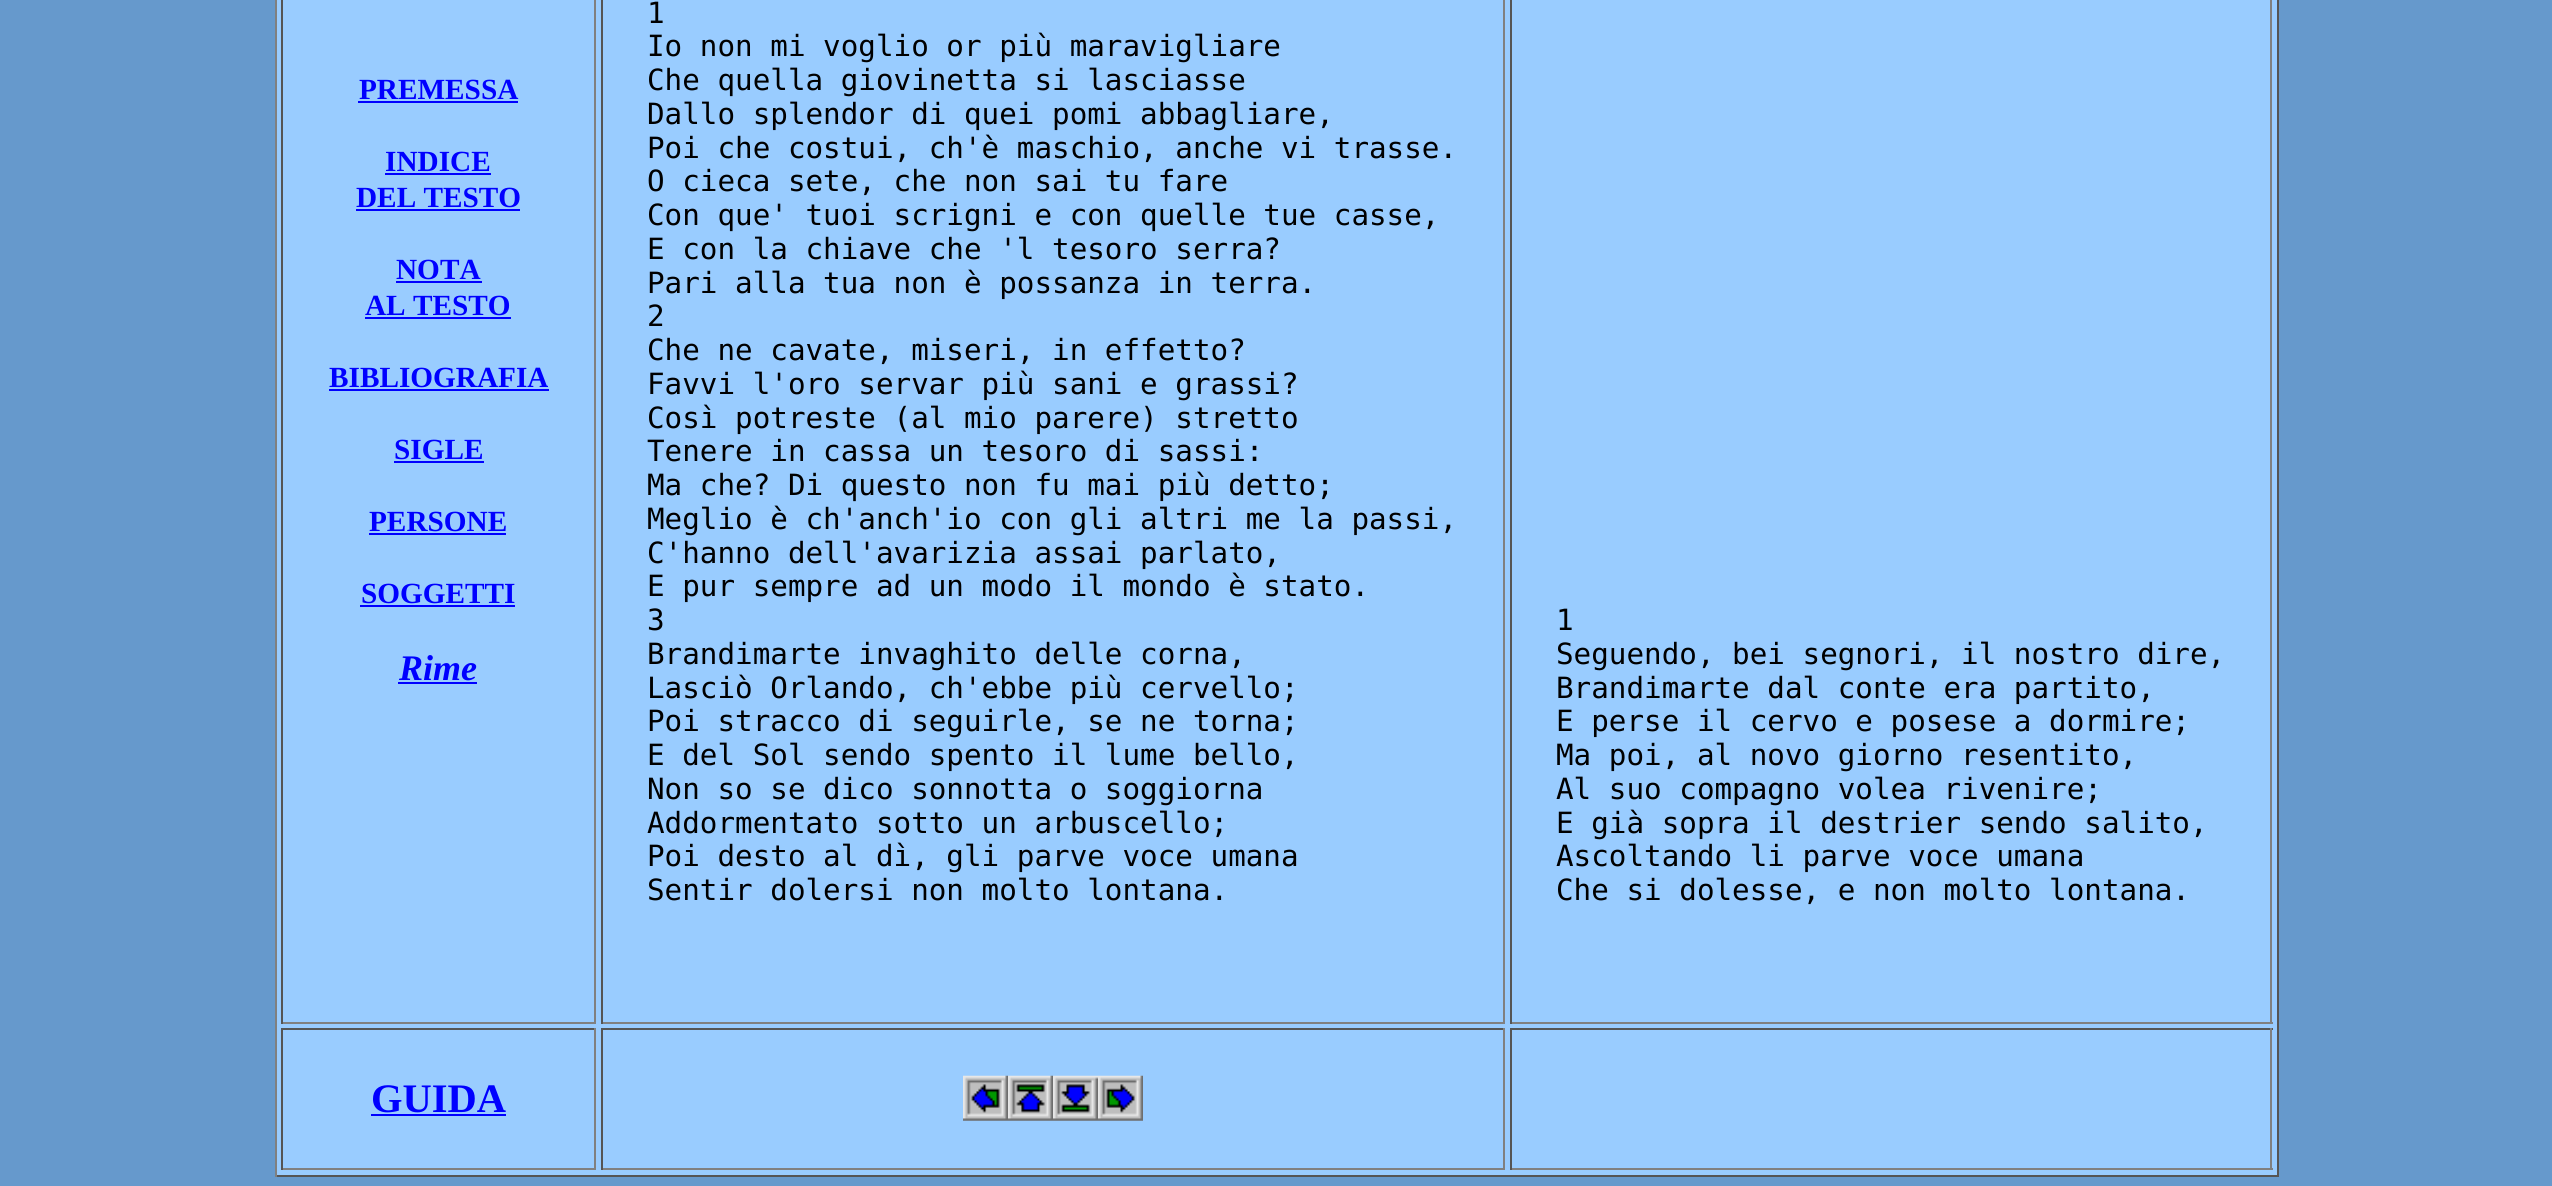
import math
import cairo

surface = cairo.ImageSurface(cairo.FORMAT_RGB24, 2552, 1186)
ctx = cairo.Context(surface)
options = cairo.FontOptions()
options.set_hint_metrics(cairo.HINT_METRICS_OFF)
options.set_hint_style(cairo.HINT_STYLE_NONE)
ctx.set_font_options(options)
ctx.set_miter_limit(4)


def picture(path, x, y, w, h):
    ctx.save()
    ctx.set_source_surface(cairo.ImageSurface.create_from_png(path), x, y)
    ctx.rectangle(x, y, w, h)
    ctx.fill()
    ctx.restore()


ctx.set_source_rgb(0.4, 0.6, 0.8)
ctx.paint()
ctx.set_source_rgb(0.6, 0.8, 1)
ctx.rectangle(277, 0, 2000, 1175)
ctx.fill()
ctx.set_source_rgb(0.333, 0.333, 0.333)
ctx.rectangle(2277, 0, 2, 1177)
ctx.fill()
ctx.rectangle(275, 1175, 2004, 2)
ctx.fill()
ctx.set_source_rgb(0.502, 0.502, 0.502)
ctx.rectangle(275, 0, 2, 1177)
ctx.fill()
ctx.rectangle(594, 0, 2, 1024)
ctx.fill()
ctx.rectangle(281, 1022, 315, 2)
ctx.fill()
ctx.set_source_rgb(0.333, 0.333, 0.333)
ctx.rectangle(281, 0, 2, 1024)
ctx.fill()
ctx.select_font_face("Liberation Serif", cairo.FONT_SLANT_NORMAL, cairo.FONT_WEIGHT_BOLD)
ctx.set_font_size(29.25)
ctx.set_source_rgb(0, 0, 1)
ctx.move_to(359, 99)
ctx.show_text("PREMESSA")
ctx.rectangle(358, 101, 160, 2)
ctx.fill()
ctx.move_to(385, 171)
ctx.show_text("INDICE")
ctx.rectangle(385, 173, 106, 2)
ctx.fill()
ctx.move_to(356, 207)
ctx.show_text("DEL TESTO")
ctx.rectangle(356, 209, 164, 2)
ctx.fill()
ctx.move_to(396, 279)
ctx.show_text("NOTA")
ctx.rectangle(396, 281, 86, 2)
ctx.fill()
ctx.move_to(365, 315)
ctx.show_text("AL TESTO")
ctx.rectangle(365, 317, 146, 2)
ctx.fill()
ctx.move_to(329, 387)
ctx.show_text("BIBLIOGRAFIA")
ctx.rectangle(329, 389, 220, 2)
ctx.fill()
ctx.move_to(394, 459)
ctx.show_text("SIGLE")
ctx.rectangle(394, 461, 90, 2)
ctx.fill()
ctx.move_to(369, 531)
ctx.show_text("PERSONE")
ctx.rectangle(369, 533, 137, 2)
ctx.fill()
ctx.move_to(361, 603)
ctx.show_text("SOGGETTI")
ctx.rectangle(360, 605, 155, 2)
ctx.fill()
ctx.select_font_face("Liberation Serif", cairo.FONT_SLANT_ITALIC, cairo.FONT_WEIGHT_BOLD)
ctx.set_font_size(36)
ctx.move_to(399, 680)
ctx.show_text("Rime")
ctx.rectangle(398, 682, 79, 2)
ctx.fill()
ctx.set_source_rgb(0.502, 0.502, 0.502)
ctx.rectangle(1503, 0, 2, 1024)
ctx.fill()
ctx.rectangle(601, 1022, 904, 2)
ctx.fill()
ctx.set_source_rgb(0.333, 0.333, 0.333)
ctx.rectangle(601, 0, 2, 1024)
ctx.fill()
ctx.select_font_face("DejaVu Sans Mono")
ctx.set_font_size(29.25)
ctx.set_source_rgb(0, 0, 0)
ctx.move_to(647, 23)
ctx.show_text("1")
ctx.move_to(647, 56)
ctx.show_text("Io non mi voglio or più maravigliare")
ctx.move_to(647, 90)
ctx.show_text("Che quella giovinetta si lasciasse")
ctx.move_to(647, 124)
ctx.show_text("Dallo splendor di quei pomi abbagliare,")
ctx.move_to(647, 158)
ctx.show_text("Poi che costui, ch'è maschio, anche vi trasse.")
ctx.move_to(647, 191)
ctx.show_text("O cieca sete, che non sai tu fare")
ctx.move_to(647, 225)
ctx.show_text("Con que' tuoi scrigni e con quelle tue casse,")
ctx.move_to(647, 259)
ctx.show_text("E con la chiave che 'l tesoro serra?")
ctx.move_to(647, 293)
ctx.show_text("Pari alla tua non è possanza in terra.")
ctx.move_to(647, 326)
ctx.show_text("2")
ctx.move_to(647, 360)
ctx.show_text("Che ne cavate, miseri, in effetto?")
ctx.move_to(647, 394)
ctx.show_text("Favvi l'oro servar più sani e grassi?")
ctx.move_to(647, 428)
ctx.show_text("Così potreste (al mio parere) stretto")
ctx.move_to(647, 461)
ctx.show_text("Tenere in cassa un tesoro di sassi:")
ctx.move_to(647, 495)
ctx.show_text("Ma che? Di questo non fu mai più detto;")
ctx.move_to(647, 529)
ctx.show_text("Meglio è ch'anch'io con gli altri me la passi,")
ctx.move_to(647, 563)
ctx.show_text("C'hanno dell'avarizia assai parlato,")
ctx.move_to(647, 596)
ctx.show_text("E pur sempre ad un modo il mondo è stato.")
ctx.move_to(647, 630)
ctx.show_text("3")
ctx.move_to(647, 664)
ctx.show_text("Brandimarte invaghito delle corna,")
ctx.move_to(647, 698)
ctx.show_text("Lasciò Orlando, ch'ebbe più cervello;")
ctx.move_to(647, 731)
ctx.show_text("Poi stracco di seguirle, se ne torna;")
ctx.move_to(647, 765)
ctx.show_text("E del Sol sendo spento il lume bello,")
ctx.move_to(647, 799)
ctx.show_text("Non so se dico sonnotta o soggiorna")
ctx.move_to(647, 833)
ctx.show_text("Addormentato sotto un arbuscello;")
ctx.move_to(647, 866)
ctx.show_text("Poi desto al dì, gli parve voce umana")
ctx.move_to(647, 900)
ctx.show_text("Sentir dolersi non molto lontana.")
ctx.set_source_rgb(0.502, 0.502, 0.502)
ctx.rectangle(2270, 0, 2, 1024)
ctx.fill()
ctx.rectangle(1510, 1022, 763, 2)
ctx.fill()
ctx.set_source_rgb(0.333, 0.333, 0.333)
ctx.rectangle(1510, 0, 2, 1024)
ctx.fill()
ctx.set_source_rgb(0, 0, 0)
ctx.move_to(1556, 630)
ctx.show_text("1")
ctx.move_to(1556, 664)
ctx.show_text("Seguendo, bei segnori, il nostro dire,")
ctx.move_to(1556, 698)
ctx.show_text("Brandimarte dal conte era partito,")
ctx.move_to(1556, 731)
ctx.show_text("E perse il cervo e posese a dormire;")
ctx.move_to(1556, 765)
ctx.show_text("Ma poi, al novo giorno resentito,")
ctx.move_to(1556, 799)
ctx.show_text("Al suo compagno volea rivenire;")
ctx.move_to(1556, 833)
ctx.show_text("E già sopra il destrier sendo salito,")
ctx.move_to(1556, 866)
ctx.show_text("Ascoltando li parve voce umana")
ctx.move_to(1556, 900)
ctx.show_text("Che si dolesse, e non molto lontana.")
ctx.set_source_rgb(0.333, 0.333, 0.333)
ctx.rectangle(281, 1028, 315, 2)
ctx.fill()
ctx.set_source_rgb(0.502, 0.502, 0.502)
ctx.rectangle(594, 1028, 2, 142)
ctx.fill()
ctx.rectangle(281, 1168, 315, 2)
ctx.fill()
ctx.set_source_rgb(0.333, 0.333, 0.333)
ctx.rectangle(281, 1028, 2, 142)
ctx.fill()
ctx.select_font_face("Liberation Serif", cairo.FONT_SLANT_NORMAL, cairo.FONT_WEIGHT_BOLD)
ctx.set_font_size(40.5)
ctx.set_source_rgb(0, 0, 1)
ctx.move_to(371, 1112)
ctx.show_text("GUIDA")
ctx.rectangle(371, 1114, 135, 2)
ctx.fill()
ctx.set_source_rgb(0.333, 0.333, 0.333)
ctx.rectangle(601, 1028, 904, 2)
ctx.fill()
ctx.set_source_rgb(0.502, 0.502, 0.502)
ctx.rectangle(1503, 1028, 2, 142)
ctx.fill()
ctx.rectangle(601, 1168, 904, 2)
ctx.fill()
ctx.set_source_rgb(0.333, 0.333, 0.333)
ctx.rectangle(601, 1028, 2, 142)
ctx.fill()
picture("img1.png", 963, 1075, 45, 46)
picture("img2.png", 1008, 1075, 45, 46)
picture("img3.png", 1053, 1075, 45, 46)
picture("img4.png", 1098, 1075, 45, 46)
ctx.rectangle(1510, 1028, 763, 2)
ctx.fill()
ctx.set_source_rgb(0.502, 0.502, 0.502)
ctx.rectangle(2270, 1028, 2, 142)
ctx.fill()
ctx.rectangle(1510, 1168, 763, 2)
ctx.fill()
ctx.set_source_rgb(0.333, 0.333, 0.333)
ctx.rectangle(1510, 1028, 2, 142)
ctx.fill()
surface.write_to_png("page.png")
